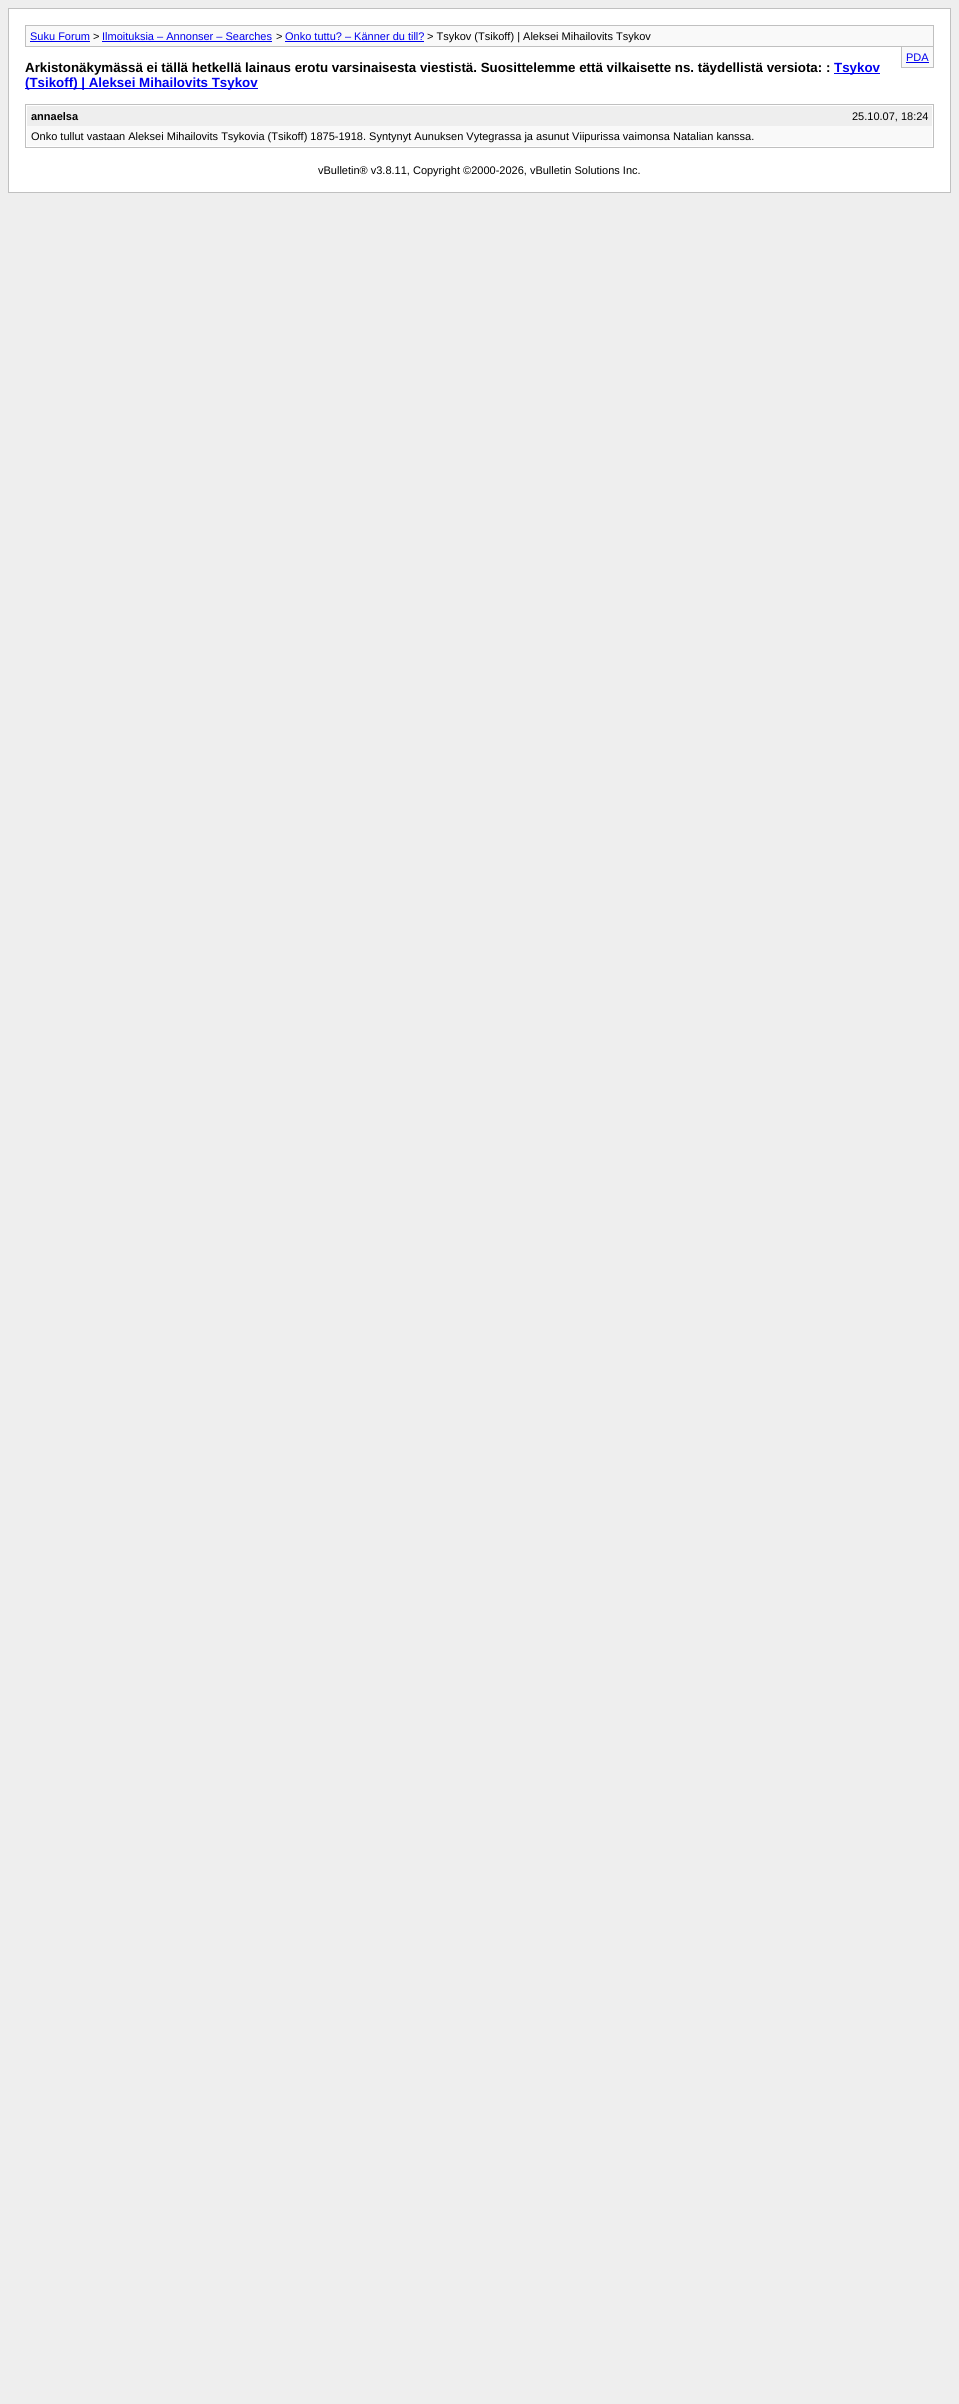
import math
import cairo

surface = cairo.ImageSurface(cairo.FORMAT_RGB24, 959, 2404)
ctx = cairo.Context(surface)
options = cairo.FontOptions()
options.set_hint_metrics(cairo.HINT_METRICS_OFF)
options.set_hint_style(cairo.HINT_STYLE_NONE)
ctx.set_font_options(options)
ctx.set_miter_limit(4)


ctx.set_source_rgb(0.933, 0.933, 0.933)
ctx.paint()
ctx.set_source_rgb(1, 1, 1)
ctx.rectangle(8.5, 8.5, 942, 184)
ctx.fill_preserve()
ctx.set_source_rgb(0.753, 0.753, 0.753)
ctx.set_line_width(1)
ctx.stroke()
ctx.set_source_rgb(0.976, 0.976, 0.976)
ctx.rectangle(25.5, 25.5, 908, 21)
ctx.fill_preserve()
ctx.set_source_rgb(0.753, 0.753, 0.753)
ctx.stroke()
ctx.select_font_face("Liberation Sans")
ctx.set_font_size(11)
ctx.set_source_rgb(0, 0, 0.933)
ctx.move_to(30, 40)
ctx.show_text("Suku Forum")
ctx.rectangle(30, 41, 60, 1)
ctx.fill()
ctx.set_source_rgb(0, 0, 0)
ctx.move_to(93, 40)
ctx.show_text(">")
ctx.set_source_rgb(0, 0, 0.933)
ctx.move_to(102, 40)
ctx.show_text("Ilmoituksia – Annonser – Searches")
ctx.rectangle(102, 41, 170, 1)
ctx.fill()
ctx.set_source_rgb(0, 0, 0)
ctx.move_to(276, 40)
ctx.show_text(">")
ctx.set_source_rgb(0, 0, 0.933)
ctx.move_to(285, 40)
ctx.show_text("Onko tuttu? – Känner du till?")
ctx.rectangle(285, 41, 139, 1)
ctx.fill()
ctx.set_source_rgb(0, 0, 0)
ctx.move_to(427, 40)
ctx.show_text("> Tsykov (Tsikoff) | Aleksei Mihailovits Tsykov")
ctx.set_source_rgb(0.976, 0.976, 0.976)
ctx.rectangle(902, 47, 31, 20)
ctx.fill()
ctx.set_source_rgb(0.753, 0.753, 0.753)
ctx.rectangle(933, 47, 1, 21)
ctx.fill()
ctx.rectangle(901, 67, 33, 1)
ctx.fill()
ctx.rectangle(901, 47, 1, 21)
ctx.fill()
ctx.set_source_rgb(0, 0, 0.933)
ctx.move_to(906, 61)
ctx.show_text("PDA")
ctx.rectangle(906, 62, 23, 1)
ctx.fill()
ctx.select_font_face("Liberation Sans", cairo.FONT_SLANT_NORMAL, cairo.FONT_WEIGHT_BOLD)
ctx.set_font_size(13.33)
ctx.set_source_rgb(0, 0, 0)
ctx.move_to(25, 72)
ctx.show_text("Arkistonäkymässä ei tällä hetkellä lainaus erotu varsinaisesta viestistä. Suosittelemme että vilkaisette ns. täydellistä versiota: :")
ctx.set_source_rgb(0, 0, 0.933)
ctx.rectangle(834, 73, 46, 1)
ctx.fill()
ctx.move_to(834, 72)
ctx.show_text("Tsykov")
ctx.rectangle(25, 88, 233, 1)
ctx.fill()
ctx.move_to(25, 87)
ctx.show_text("(Tsikoff) | Aleksei Mihailovits Tsykov")
ctx.rectangle(25.5, 104.5, 908, 43)
ctx.set_source_rgb(0.753, 0.753, 0.753)
ctx.stroke()
ctx.set_source_rgb(0.933, 0.933, 0.933)
ctx.rectangle(27, 106, 905, 20)
ctx.fill()
ctx.set_font_size(11)
ctx.set_source_rgb(0, 0, 0)
ctx.move_to(31, 120)
ctx.show_text("annaelsa")
ctx.select_font_face("Liberation Sans")
ctx.move_to(852, 120)
ctx.show_text("25.10.07, 18:24")
ctx.set_source_rgb(0.976, 0.976, 0.976)
ctx.rectangle(27, 126, 905, 20)
ctx.fill()
ctx.set_source_rgb(0, 0, 0)
ctx.move_to(31, 140)
ctx.show_text("Onko tullut vastaan Aleksei Mihailovits Tsykovia (Tsikoff) 1875-1918. Syntynyt Aunuksen Vytegrassa ja asunut Viipurissa vaimonsa Natalian kanssa.")
ctx.move_to(318, 174)
ctx.show_text("vBulletin® v3.8.11, Copyright ©2000-2026, vBulletin Solutions Inc.")
surface.write_to_png("page.png")
